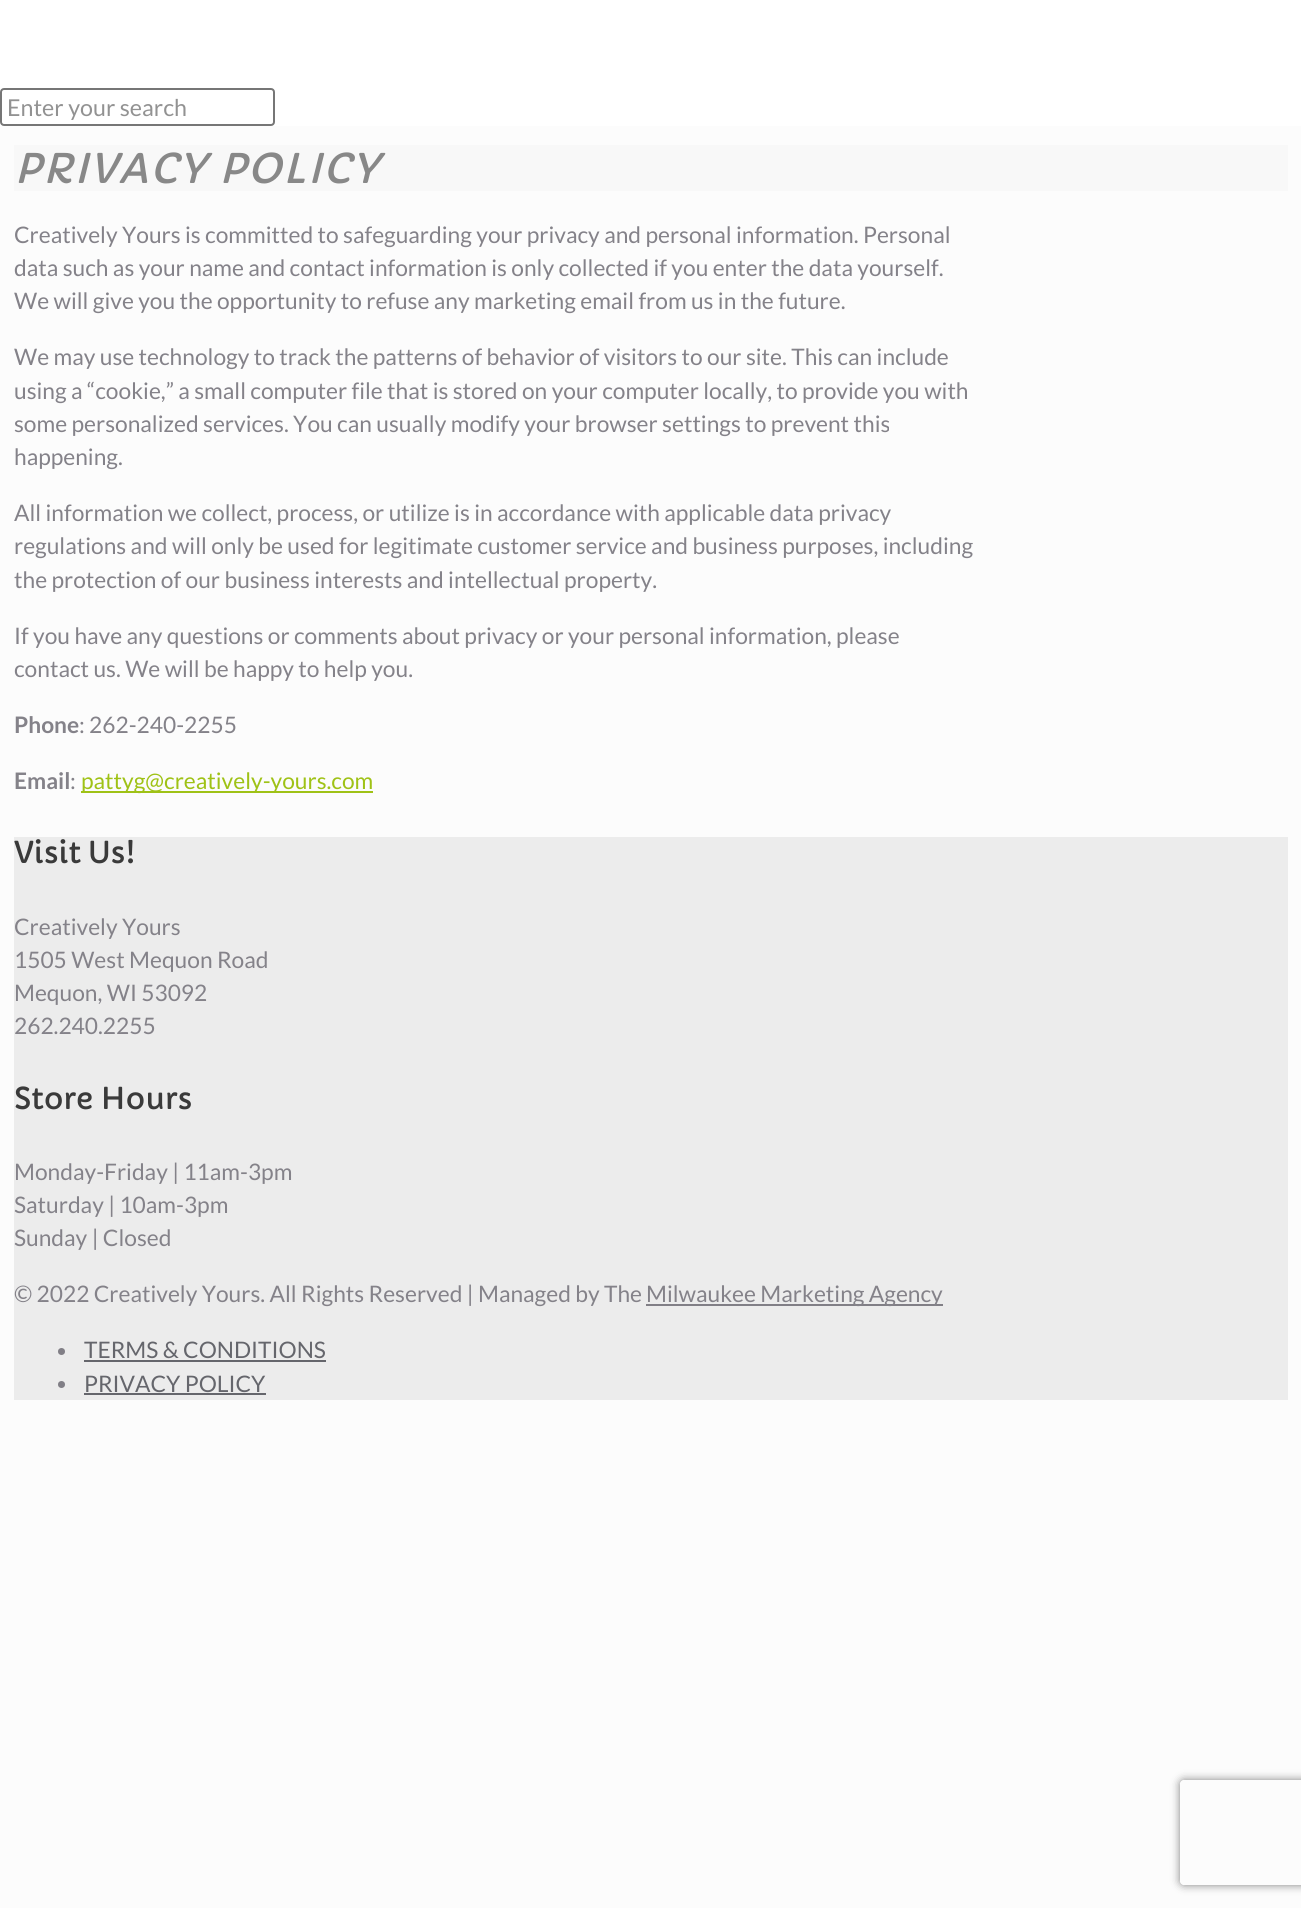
import math
import cairo

surface = cairo.ImageSurface(cairo.FORMAT_RGB24, 1301, 1908)
ctx = cairo.Context(surface)
options = cairo.FontOptions()
options.set_hint_metrics(cairo.HINT_METRICS_OFF)
options.set_hint_style(cairo.HINT_STYLE_NONE)
ctx.set_font_options(options)
ctx.set_miter_limit(4)


def spaced_text(x, y, s, letter, word):
    ctx.move_to(x, y)
    for ch in s:
        ctx.show_text(ch)
        ctx.rel_move_to(letter + word * (ch == ' '), 0)


def round_rect(x, y, w, h, r):
    ctx.new_sub_path()
    for i, (u, v) in enumerate([(x + w - r, y + h - r), (x + r, y + h - r), (x + r, y + r), (x + w - r, y + r)]):
        ctx.arc(u, v, r, i * math.pi / 2, (i + 1) * math.pi / 2)
    ctx.close_path()


def shadow(x, y, w, h, r, blur, alpha):
    ctx.push_group_with_content(cairo.CONTENT_ALPHA)
    ctx.set_operator(cairo.OPERATOR_SOURCE)
    for i in range(15, -16, -2):
        e = blur * i / 6
        if min(w, h) + 2 * e > 0:
            ctx.set_source_rgba(0, 0, 0, alpha * math.erfc((i - 1) / 8.5) / 2)
            round_rect(x - e, y - e, w + 2 * e, h + 2 * e, max(0, min(r + e + blur * .6, min(w, h) / 2 + e)))
            ctx.fill()
    ctx.mask(ctx.pop_group())


ctx.set_source_rgb(0.988, 0.988, 0.988)
ctx.paint()
ctx.set_source_rgb(1, 1, 1)
ctx.rectangle(0, 0, 1301, 126)
ctx.fill()
round_rect(1, 89, 273, 36, 3)
ctx.set_source_rgb(0.463, 0.463, 0.463)
ctx.stroke()
ctx.select_font_face("Lato")
ctx.set_font_size(23.25)
ctx.set_source_rgb(0.573, 0.573, 0.573)
ctx.move_to(7, 116)
ctx.show_text("Enter your search")
ctx.set_source_rgb(0.969, 0.969, 0.969)
ctx.rectangle(14, 145, 1274, 46)
ctx.fill()
ctx.select_font_face("Capriola", cairo.FONT_SLANT_ITALIC)
ctx.set_font_size(40.25)
ctx.set_source_rgb(0.533, 0.533, 0.533)
spaced_text(14, 183, "PRIVACY POLICY", 1.75, 0)
ctx.select_font_face("Lato")
ctx.set_font_size(22.75)
ctx.set_source_rgb(0.518, 0.51, 0.537)
ctx.move_to(14, 243)
ctx.show_text("Creatively Yours is committed to safeguarding your privacy and personal information. Personal")
ctx.move_to(14, 276)
ctx.show_text("data such as your name and contact information is only collected if you enter the data yourself.")
ctx.move_to(14, 309)
ctx.show_text("We will give you the opportunity to refuse any marketing email from us in the future.")
ctx.move_to(14, 365)
ctx.show_text("We may use technology to track the patterns of behavior of visitors to our site. This can include")
ctx.move_to(14, 399)
ctx.show_text("using a “cookie,” a small computer file that is stored on your computer locally, to provide you with")
ctx.move_to(14, 432)
ctx.show_text("some personalized services. You can usually modify your browser settings to prevent this")
ctx.move_to(14, 465)
ctx.show_text("happening.")
ctx.move_to(14, 521)
ctx.show_text("All information we collect, process, or utilize is in accordance with applicable data privacy")
ctx.move_to(14, 554)
ctx.show_text("regulations and will only be used for legitimate customer service and business purposes, including")
ctx.move_to(14, 588)
ctx.show_text("the protection of our business interests and intellectual property.")
ctx.move_to(14, 644)
ctx.show_text("If you have any questions or comments about privacy or your personal information, please")
ctx.move_to(14, 677)
ctx.show_text("contact us. We will be happy to help you.")
ctx.select_font_face("Lato", cairo.FONT_SLANT_NORMAL, cairo.FONT_WEIGHT_BOLD)
ctx.move_to(14, 733)
ctx.show_text("Phone")
ctx.select_font_face("Lato")
ctx.move_to(79, 733)
ctx.show_text(": 262-240-2255")
ctx.select_font_face("Lato", cairo.FONT_SLANT_NORMAL, cairo.FONT_WEIGHT_BOLD)
ctx.move_to(14, 789)
ctx.show_text("Email")
ctx.select_font_face("Lato")
ctx.move_to(70, 789)
ctx.show_text(":")
ctx.set_source_rgb(0.624, 0.761, 0.086)
ctx.rectangle(81, 791, 292, 2)
ctx.fill()
ctx.move_to(81, 789)
ctx.show_text("pattyg@creatively-yours.com")
ctx.set_source_rgb(0.925, 0.925, 0.925)
ctx.rectangle(14, 837, 1274, 563)
ctx.fill()
ctx.select_font_face("Capriola")
ctx.set_font_size(29.75)
ctx.set_source_rgb(0.227, 0.227, 0.227)
ctx.move_to(14, 863)
ctx.show_text("Visit Us!")
ctx.select_font_face("Lato")
ctx.set_font_size(22.75)
ctx.set_source_rgb(0.518, 0.51, 0.537)
ctx.move_to(14, 935)
ctx.show_text("Creatively Yours")
ctx.move_to(14, 968)
ctx.show_text("1505 West Mequon Road")
ctx.move_to(14, 1001)
ctx.show_text("Mequon, WI 53092")
ctx.move_to(14, 1034)
ctx.show_text("262.240.2255")
ctx.select_font_face("Capriola")
ctx.set_font_size(29.75)
ctx.set_source_rgb(0.227, 0.227, 0.227)
ctx.move_to(14, 1109)
ctx.show_text("Store Hours")
ctx.select_font_face("Lato")
ctx.set_font_size(22.75)
ctx.set_source_rgb(0.518, 0.51, 0.537)
ctx.move_to(14, 1180)
ctx.show_text("Monday-Friday | 11am-3pm")
ctx.move_to(14, 1213)
ctx.show_text("Saturday | 10am-3pm")
ctx.move_to(14, 1246)
ctx.show_text("Sunday | Closed")
ctx.move_to(14, 1302)
ctx.show_text("© 2022 Creatively Yours. All Rights Reserved | Managed by The")
ctx.set_source_rgb(0.506, 0.498, 0.525)
ctx.rectangle(646, 1304, 297, 2)
ctx.fill()
ctx.set_source_rgb(0.518, 0.51, 0.537)
ctx.move_to(646, 1302)
ctx.show_text("Milwaukee Marketing Agency")
ctx.set_source_rgb(0.506, 0.498, 0.525)
ctx.new_path()
ctx.arc(61.5, 1351.5, 3.5, 0, 2 * math.pi)
ctx.fill()
ctx.set_source_rgb(0.396, 0.4, 0.424)
ctx.move_to(84, 1358)
ctx.show_text("TERMS & CONDITIONS")
ctx.rectangle(84, 1360, 242, 2)
ctx.fill()
ctx.set_source_rgb(0.506, 0.498, 0.525)
ctx.arc(61.5, 1384.5, 3.5, 0, 2 * math.pi)
ctx.fill()
ctx.set_source_rgb(0.396, 0.4, 0.424)
ctx.move_to(84, 1392)
ctx.show_text("PRIVACY POLICY")
ctx.rectangle(84, 1393, 182, 2)
ctx.fill()
ctx.save()
ctx.set_fill_rule(cairo.FILL_RULE_EVEN_ODD)
ctx.new_path()
ctx.move_to(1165, 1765)
ctx.line_to(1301, 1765)
ctx.line_to(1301, 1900)
ctx.line_to(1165, 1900)
ctx.close_path()
ctx.move_to(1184, 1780)
ctx.line_to(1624, 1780)
ctx.curve_to(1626, 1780, 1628, 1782, 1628, 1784)
ctx.line_to(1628, 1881)
ctx.curve_to(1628, 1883, 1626, 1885, 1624, 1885)
ctx.line_to(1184, 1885)
ctx.curve_to(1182, 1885, 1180, 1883, 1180, 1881)
ctx.line_to(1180, 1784)
ctx.curve_to(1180, 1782, 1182, 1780, 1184, 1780)
ctx.close_path()
ctx.clip()
ctx.set_source_rgb(0.502, 0.502, 0.502)
shadow(1180, 1780, 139, 105, 4, 4.5, 1)
ctx.restore()
surface.write_to_png("page.png")
